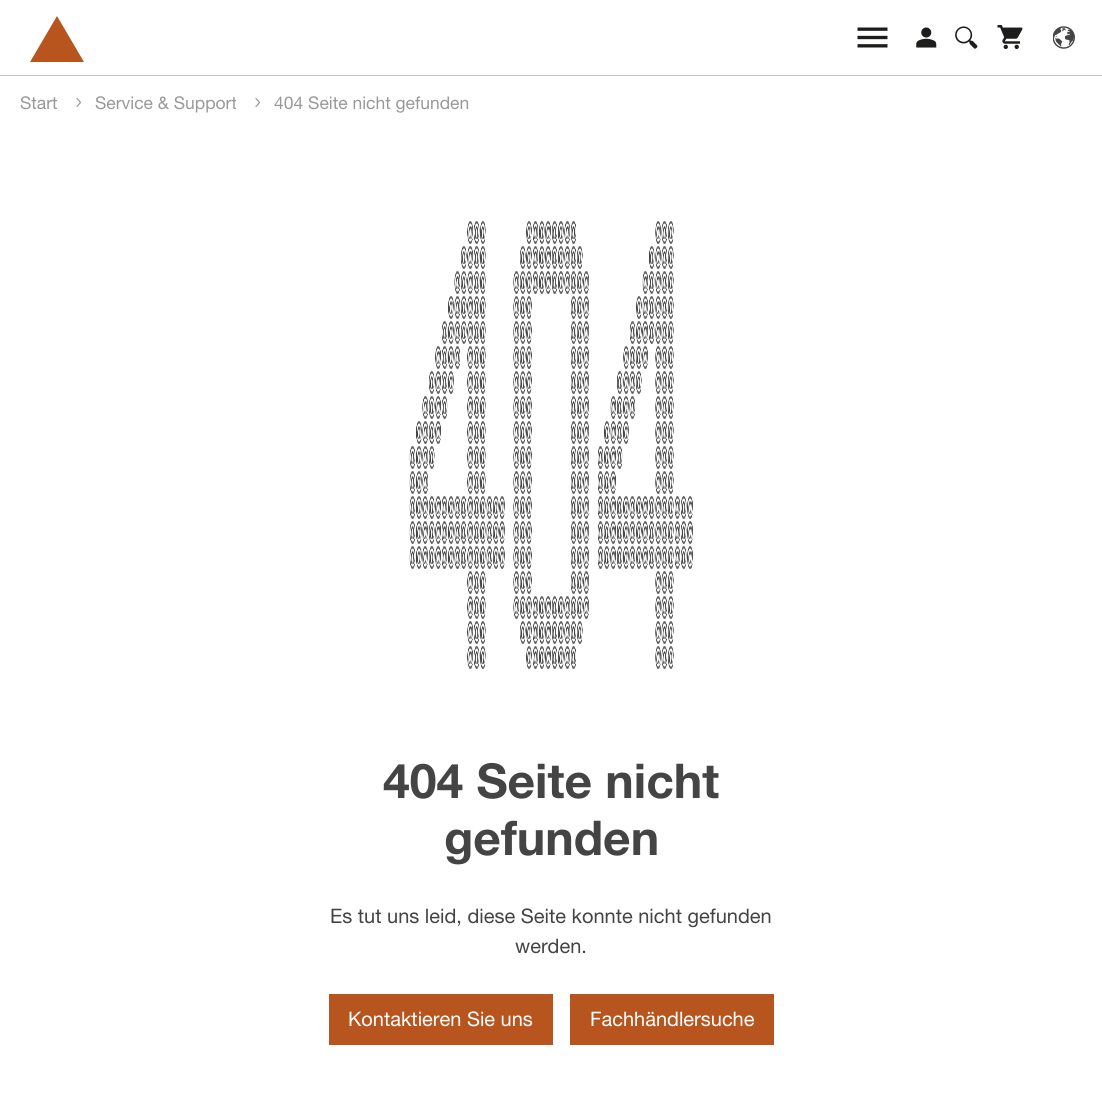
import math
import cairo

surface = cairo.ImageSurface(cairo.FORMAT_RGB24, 1102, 1098)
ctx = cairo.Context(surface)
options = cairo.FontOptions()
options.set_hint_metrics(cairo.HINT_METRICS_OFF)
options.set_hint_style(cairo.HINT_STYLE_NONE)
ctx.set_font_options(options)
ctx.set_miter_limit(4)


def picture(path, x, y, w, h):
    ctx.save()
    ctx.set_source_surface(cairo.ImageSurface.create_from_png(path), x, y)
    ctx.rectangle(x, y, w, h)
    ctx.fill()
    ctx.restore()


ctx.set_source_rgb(1, 1, 1)
ctx.paint()
ctx.set_source_rgb(0.757, 0.769, 0.773)
ctx.rectangle(0, 75, 1102, 1)
ctx.fill()
ctx.set_source_rgb(0.722, 0.333, 0.122)
ctx.new_path()
ctx.move_to(30, 62)
ctx.line_to(84, 62)
ctx.line_to(57, 16)
ctx.close_path()
ctx.fill()
picture("img1.png", 857, 27, 31, 21)
picture("img2.png", 916, 27, 21, 21)
picture("img3.png", 955, 26, 23, 23)
picture("img4.png", 997, 25, 26, 24)
picture("img5.png", 1053, 26, 22, 23)
ctx.select_font_face("Helvetica Neue")
ctx.set_font_size(17.5)
ctx.set_source_rgb(0.6, 0.6, 0.6)
ctx.move_to(20, 109)
ctx.show_text("Start")
ctx.new_path()
ctx.move_to(77, 106.5)
ctx.line_to(80.5, 102.5)
ctx.line_to(77, 98.5)
ctx.set_line_width(1.2)
ctx.set_line_cap(cairo.LINE_CAP_ROUND)
ctx.stroke()
ctx.move_to(95, 109)
ctx.show_text("Service & Support")
ctx.new_path()
ctx.move_to(256, 106.5)
ctx.line_to(259.5, 102.5)
ctx.line_to(256, 98.5)
ctx.stroke()
ctx.move_to(274, 109)
ctx.show_text("404 Seite nicht gefunden")
picture("img6.png", 409, 221, 284, 448)
ctx.select_font_face("Helvetica Neue", cairo.FONT_SLANT_NORMAL, cairo.FONT_WEIGHT_BOLD)
ctx.set_font_size(48)
ctx.set_source_rgb(0.267, 0.267, 0.267)
ctx.move_to(383, 798)
ctx.show_text("404 Seite nicht")
ctx.move_to(444, 855)
ctx.show_text("gefunden")
ctx.select_font_face("Helvetica Neue")
ctx.set_font_size(20)
ctx.move_to(330, 923)
ctx.show_text("Es tut uns leid, diese Seite konnte nicht gefunden")
ctx.move_to(515, 953)
ctx.show_text("werden.")
ctx.set_source_rgb(0.722, 0.333, 0.122)
ctx.rectangle(329, 994, 224, 51)
ctx.fill()
ctx.set_source_rgb(1, 1, 1)
ctx.move_to(348, 1026)
ctx.show_text("Kontaktieren Sie uns")
ctx.set_source_rgb(0.722, 0.333, 0.122)
ctx.rectangle(570, 994, 204, 51)
ctx.fill()
ctx.set_source_rgb(1, 1, 1)
ctx.move_to(590, 1026)
ctx.show_text("Fachhändlersuche")
surface.write_to_png("page.png")
